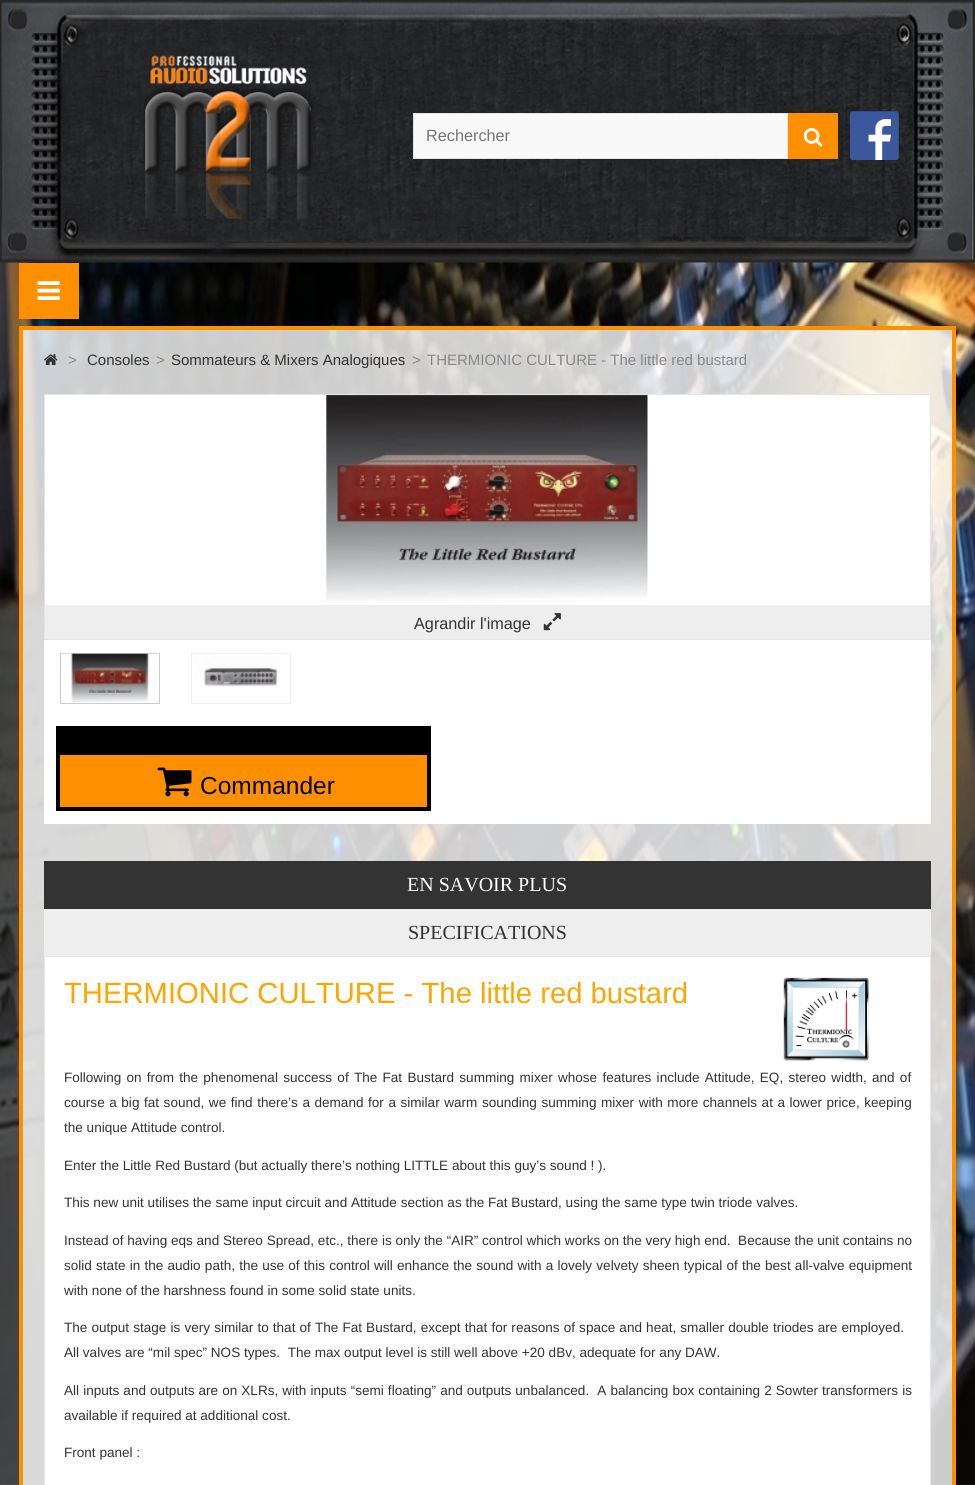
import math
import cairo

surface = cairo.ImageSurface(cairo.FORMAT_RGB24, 975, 1485)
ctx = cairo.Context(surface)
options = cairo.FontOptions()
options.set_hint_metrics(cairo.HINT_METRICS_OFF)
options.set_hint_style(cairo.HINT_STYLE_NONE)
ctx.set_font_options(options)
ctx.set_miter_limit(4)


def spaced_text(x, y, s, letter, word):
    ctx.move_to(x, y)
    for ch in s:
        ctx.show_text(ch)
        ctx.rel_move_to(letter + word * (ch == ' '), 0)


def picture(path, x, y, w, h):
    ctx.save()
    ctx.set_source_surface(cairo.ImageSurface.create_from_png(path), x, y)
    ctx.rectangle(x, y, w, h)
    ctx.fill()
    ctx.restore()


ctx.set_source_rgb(1, 1, 1)
ctx.paint()
picture("img1.png", 0, 262, 975, 1223)
picture("img2.png", 0, 0, 975, 263)
picture("img3.png", 143, 55, 170, 164)
ctx.set_source_rgb(0.976, 0.976, 0.976)
ctx.rectangle(413.5, 113.5, 374, 45)
ctx.fill_preserve()
ctx.set_source_rgb(0.898, 0.898, 0.898)
ctx.set_line_width(1)
ctx.stroke()
ctx.select_font_face("Liberation Sans")
ctx.set_font_size(16.25)
ctx.set_source_rgb(0.459, 0.459, 0.459)
ctx.move_to(426, 141)
ctx.show_text("Rechercher")
ctx.set_source_rgb(0.996, 0.565, 0)
ctx.rectangle(788, 113, 50, 46)
ctx.fill()
picture("img4.png", 803, 128, 20, 19)
picture("img5.png", 850, 111, 49, 49)
ctx.rectangle(19, 263, 60, 56)
ctx.fill()
picture("img6.png", 37, 281, 23, 19)
ctx.set_source_rgba(1, 1, 1, 0.8)
ctx.rectangle(21, 328, 933, 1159)
ctx.fill_preserve()
ctx.set_source_rgb(0.996, 0.565, 0)
ctx.set_line_width(4)
ctx.stroke()
picture("img7.png", 44, 354, 14, 11)
ctx.set_font_size(15)
ctx.set_source_rgb(0.533, 0.533, 0.533)
ctx.move_to(68, 365)
ctx.show_text(">")
ctx.set_source_rgb(0.2, 0.2, 0.2)
ctx.move_to(87, 365)
ctx.show_text("Consoles")
ctx.set_source_rgb(0.533, 0.533, 0.533)
ctx.move_to(156, 365)
ctx.show_text(">")
ctx.set_source_rgb(0.2, 0.2, 0.2)
ctx.move_to(171, 365)
ctx.show_text("Sommateurs & Mixers Analogiques")
ctx.set_source_rgb(0.533, 0.533, 0.533)
ctx.move_to(412, 365)
ctx.show_text(">")
ctx.move_to(427, 365)
ctx.show_text("THERMIONIC CULTURE - The little red bustard")
ctx.set_source_rgb(1, 1, 1)
ctx.rectangle(44, 395, 887, 429)
ctx.fill()
ctx.rectangle(44.5, 394.5, 886, 245)
ctx.set_source_rgb(0.898, 0.898, 0.898)
ctx.set_line_width(1)
ctx.stroke()
picture("img8.png", 326, 395, 322, 206)
ctx.set_source_rgb(0.933, 0.933, 0.933)
ctx.rectangle(45, 605, 885, 34)
ctx.fill()
ctx.set_font_size(16.25)
ctx.set_source_rgb(0.2, 0.2, 0.2)
ctx.move_to(414, 629)
ctx.show_text("Agrandir l'image")
picture("img9.png", 543, 613, 18, 18)
ctx.rectangle(60.5, 653.5, 99, 50)
ctx.set_source_rgb(0.8, 0.8, 0.8)
ctx.stroke()
picture("img10.png", 61, 653, 98, 50)
ctx.rectangle(191.5, 653.5, 99, 50)
ctx.set_source_rgb(0.933, 0.933, 0.933)
ctx.stroke()
picture("img11.png", 193, 653, 97, 34)
ctx.set_source_rgb(0, 0, 0)
ctx.rectangle(56, 726, 375, 25)
ctx.fill()
ctx.set_source_rgb(0.996, 0.565, 0)
ctx.rectangle(58, 753, 371, 56)
ctx.fill_preserve()
ctx.set_source_rgb(0, 0, 0)
ctx.set_line_width(4)
ctx.stroke()
picture("img12.png", 157, 767, 35, 30)
ctx.set_font_size(24.5)
ctx.move_to(200, 794)
ctx.show_text("Commander")
ctx.set_source_rgb(0.2, 0.2, 0.2)
ctx.rectangle(44, 861, 887, 48)
ctx.fill()
ctx.select_font_face("Liberation Serif")
ctx.set_font_size(20)
ctx.set_source_rgb(1, 1, 1)
ctx.move_to(407, 891)
ctx.show_text("EN SAVOIR PLUS")
ctx.set_source_rgb(0.933, 0.933, 0.933)
ctx.rectangle(44, 909, 887, 47)
ctx.fill()
ctx.set_source_rgb(0.2, 0.2, 0.2)
ctx.move_to(408, 939)
ctx.show_text("SPECIFICATIONS")
ctx.set_source_rgb(1, 1, 1)
ctx.rectangle(44.5, 956.5, 886, 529)
ctx.fill_preserve()
ctx.set_source_rgb(0.902, 0.914, 0.914)
ctx.set_line_width(1)
ctx.stroke()
ctx.select_font_face("Liberation Sans")
ctx.set_font_size(29.25)
ctx.set_source_rgb(1, 0.647, 0)
ctx.move_to(64, 1003)
ctx.show_text("THERMIONIC CULTURE - The little red bustard")
picture("img13.png", 783, 977, 86, 84)
ctx.set_font_size(13.55)
ctx.set_source_rgb(0.2, 0.2, 0.2)
spaced_text(64, 1082, "Following on from the phenomenal success of The Fat Bustard summing mixer whose features include Attitude, EQ, stereo width, and of", 0, 1.5)
spaced_text(64, 1107, "course a big fat sound, we find there’s a demand for a similar warm sounding summing mixer with more channels at a lower price, keeping", 0, 0.8)
ctx.move_to(64, 1132)
ctx.show_text("the unique Attitude control.")
ctx.move_to(64, 1170)
ctx.show_text("Enter the Little Red Bustard (but actually there’s nothing LITTLE about this guy’s sound ! ).")
ctx.move_to(64, 1207)
ctx.show_text("This new unit utilises the same input circuit and Attitude section as the Fat Bustard, using the same type twin triode valves.")
ctx.move_to(64, 1245)
ctx.show_text("Instead of having eqs and Stereo Spread, etc., there is only the “AIR” control which works on the very high end.  Because the unit contains no")
spaced_text(64, 1270, "solid state in the audio path, the use of this control will enhance the sound with a lovely velvety sheen typical of the best all-valve equipment", 0, 0.45)
ctx.move_to(64, 1295)
ctx.show_text("with none of the harshness found in some solid state units.")
spaced_text(64, 1332, "The output stage is very similar to that of The Fat Bustard, except that for reasons of space and heat, smaller double triodes are employed.", 0, 0.35)
ctx.move_to(64, 1357)
ctx.show_text("All valves are “mil spec” NOS types.  The max output level is still well above +20 dBv, adequate for any DAW.")
spaced_text(64, 1395, "All inputs and outputs are on XLRs, with inputs “semi floating” and outputs unbalanced.  A balancing box containing 2 Sowter transformers is", 0, 0.3)
ctx.move_to(64, 1420)
ctx.show_text("available if required at additional cost.")
ctx.move_to(64, 1457)
ctx.show_text("Front panel :")
surface.write_to_png("page.png")
